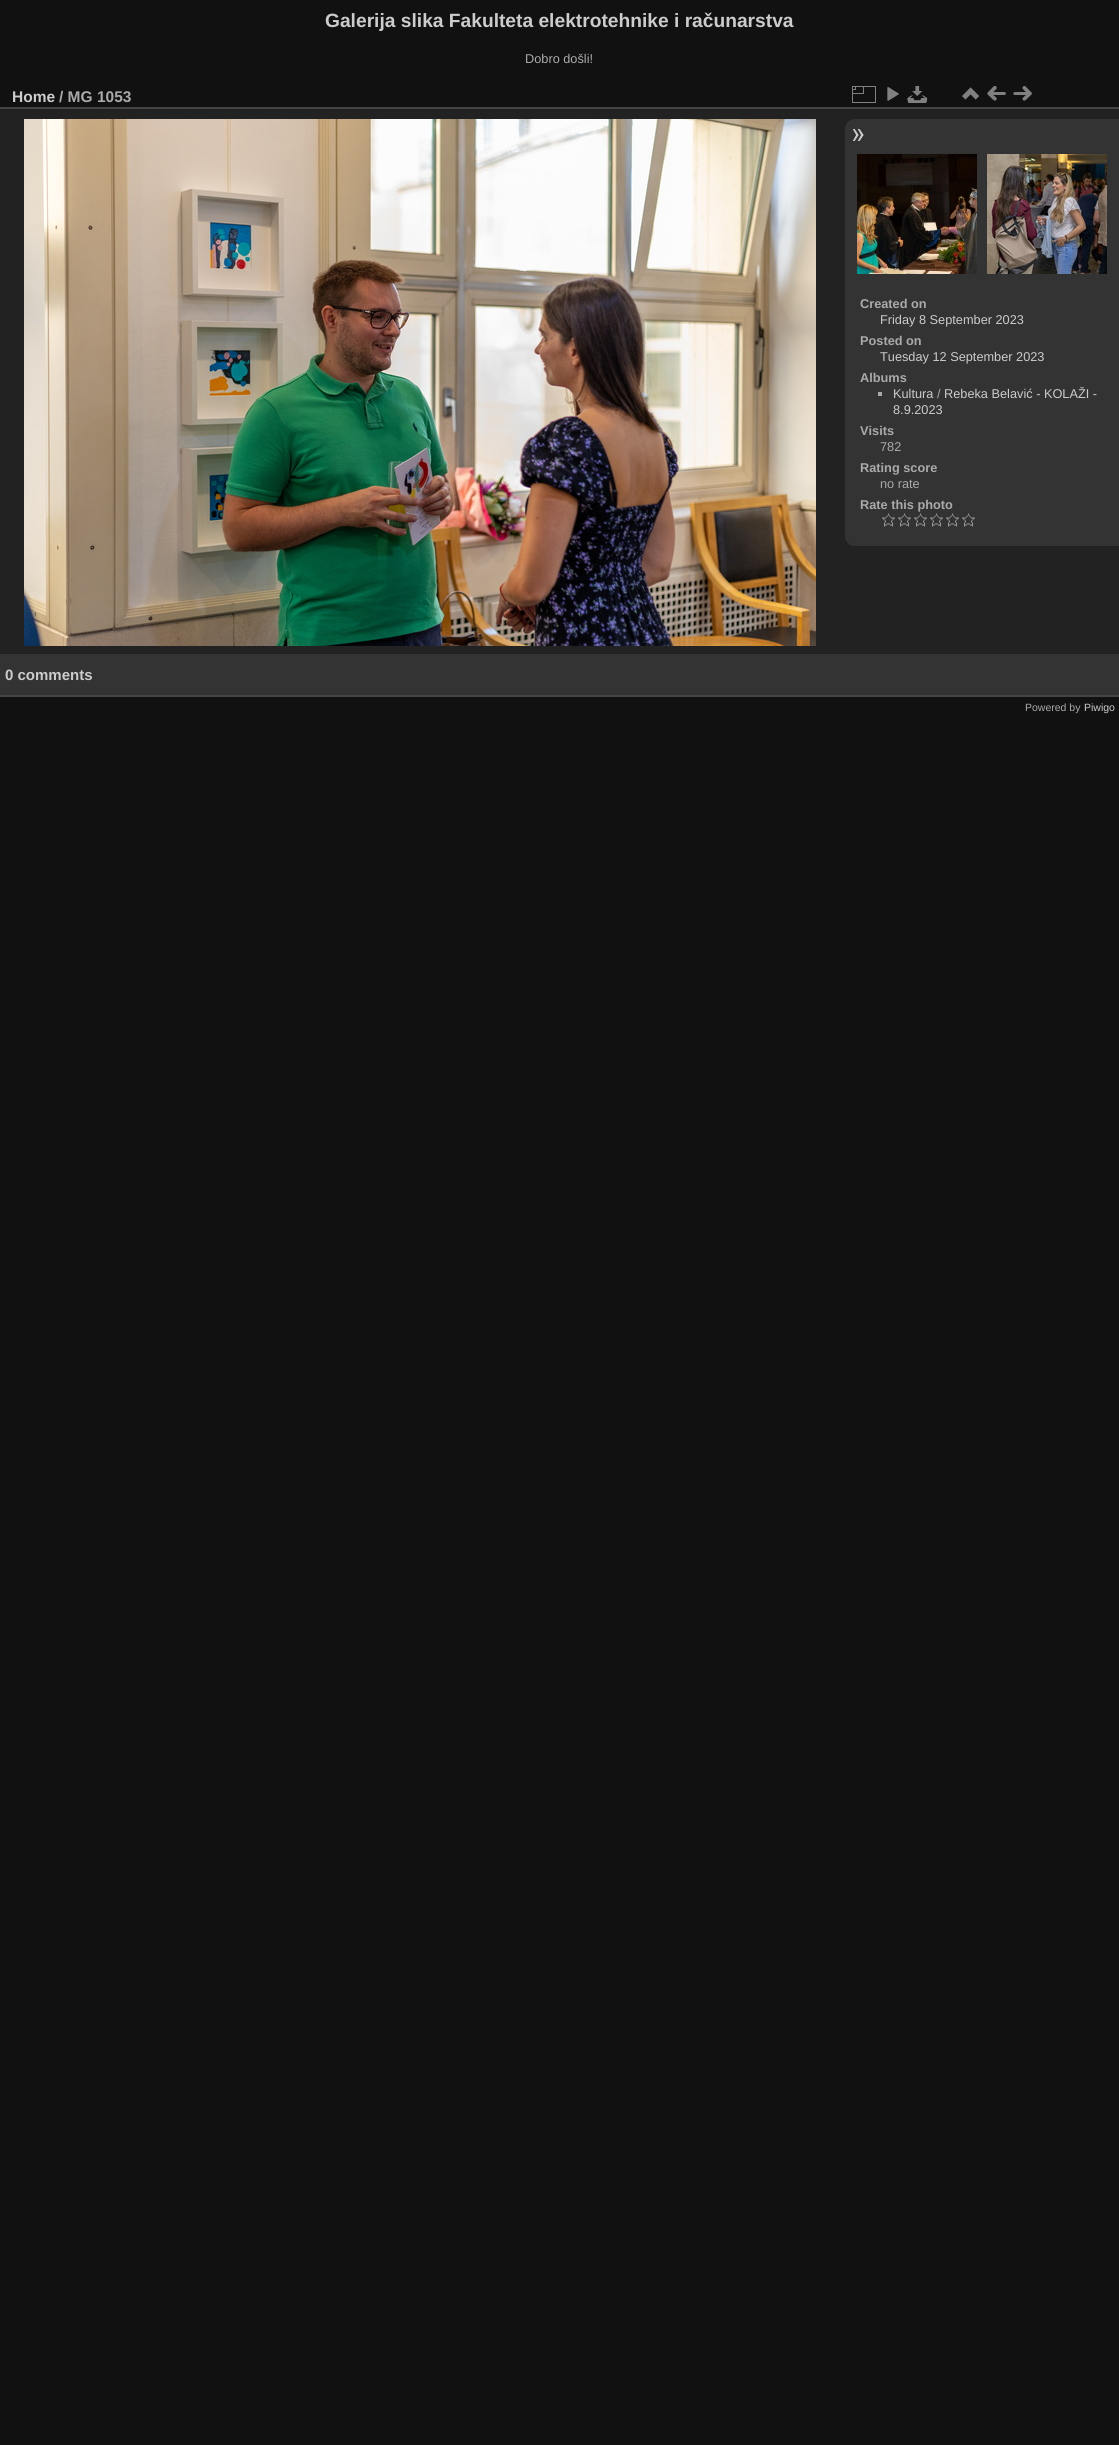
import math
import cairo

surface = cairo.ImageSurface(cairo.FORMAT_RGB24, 1119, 2445)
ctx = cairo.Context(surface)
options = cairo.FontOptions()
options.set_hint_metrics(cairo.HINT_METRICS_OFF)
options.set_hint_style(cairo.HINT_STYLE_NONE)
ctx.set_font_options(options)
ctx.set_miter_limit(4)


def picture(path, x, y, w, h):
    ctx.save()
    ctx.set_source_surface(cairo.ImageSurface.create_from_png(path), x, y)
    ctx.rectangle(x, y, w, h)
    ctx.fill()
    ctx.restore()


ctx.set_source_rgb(0.067, 0.067, 0.067)
ctx.paint()
ctx.select_font_face("Liberation Sans", cairo.FONT_SLANT_NORMAL, cairo.FONT_WEIGHT_BOLD)
ctx.set_font_size(19.2)
ctx.set_source_rgb(0.8, 0.8, 0.8)
ctx.move_to(325, 27)
ctx.show_text("Galerija slika Fakulteta elektrotehnike i računarstva")
ctx.select_font_face("Liberation Sans")
ctx.set_font_size(12.75)
ctx.set_source_rgb(0.667, 0.667, 0.667)
ctx.move_to(525, 63)
ctx.show_text("Dobro došli!")
ctx.set_source_rgb(0.133, 0.133, 0.133)
ctx.rectangle(0, 109, 1119, 545)
ctx.fill()
ctx.set_source_rgb(0.267, 0.267, 0.267)
ctx.rectangle(0, 695, 1119, 2)
ctx.fill()
ctx.rectangle(0, 107, 1119, 2)
ctx.fill()
ctx.select_font_face("Liberation Sans", cairo.FONT_SLANT_NORMAL, cairo.FONT_WEIGHT_BOLD)
ctx.set_font_size(15.5)
ctx.set_source_rgb(0.8, 0.8, 0.8)
ctx.move_to(12, 102)
ctx.show_text("Home")
ctx.set_source_rgb(0.667, 0.667, 0.667)
ctx.move_to(59, 102)
ctx.show_text("/ MG 1053")
picture("img1.png", 852, 86, 24, 17)
picture("img2.png", 887, 87, 12, 14)
picture("img3.png", 907, 86, 21, 17)
picture("img4.png", 962, 87, 17, 13)
picture("img5.png", 987, 86, 19, 15)
picture("img6.png", 1013, 86, 19, 15)
picture("img7.png", 24, 119, 792, 527)
ctx.set_source_rgb(0.2, 0.2, 0.2)
ctx.new_path()
ctx.move_to(855, 119)
ctx.line_to(1119, 119)
ctx.line_to(1119, 546)
ctx.line_to(855, 546)
ctx.curve_to(849.5, 546, 845, 541.5, 845, 536)
ctx.line_to(845, 129)
ctx.curve_to(845, 123.5, 849.5, 119, 855, 119)
ctx.close_path()
ctx.fill()
picture("img8.png", 852, 129, 12, 12)
picture("img9.png", 857, 154, 120, 120)
picture("img10.png", 987, 154, 120, 120)
ctx.set_font_size(12.75)
ctx.set_source_rgb(0.667, 0.667, 0.667)
ctx.move_to(860, 308)
ctx.show_text("Created on")
ctx.select_font_face("Liberation Sans")
ctx.set_source_rgb(0.8, 0.8, 0.8)
ctx.move_to(880, 324)
ctx.show_text("Friday 8 September 2023")
ctx.select_font_face("Liberation Sans", cairo.FONT_SLANT_NORMAL, cairo.FONT_WEIGHT_BOLD)
ctx.set_source_rgb(0.667, 0.667, 0.667)
ctx.move_to(860, 345)
ctx.show_text("Posted on")
ctx.select_font_face("Liberation Sans")
ctx.set_source_rgb(0.8, 0.8, 0.8)
ctx.move_to(880, 361)
ctx.show_text("Tuesday 12 September 2023")
ctx.select_font_face("Liberation Sans", cairo.FONT_SLANT_NORMAL, cairo.FONT_WEIGHT_BOLD)
ctx.set_source_rgb(0.667, 0.667, 0.667)
ctx.move_to(860, 382)
ctx.show_text("Albums")
ctx.rectangle(878, 392, 4, 4)
ctx.fill()
ctx.select_font_face("Liberation Sans")
ctx.set_source_rgb(0.8, 0.8, 0.8)
ctx.move_to(893, 398)
ctx.show_text("Kultura")
ctx.set_source_rgb(0.667, 0.667, 0.667)
ctx.move_to(937, 398)
ctx.show_text("/")
ctx.set_source_rgb(0.8, 0.8, 0.8)
ctx.move_to(944, 398)
ctx.show_text("Rebeka Belavić - KOLAŽI -")
ctx.move_to(893, 414)
ctx.show_text("8.9.2023")
ctx.select_font_face("Liberation Sans", cairo.FONT_SLANT_NORMAL, cairo.FONT_WEIGHT_BOLD)
ctx.set_source_rgb(0.667, 0.667, 0.667)
ctx.move_to(860, 435)
ctx.show_text("Visits")
ctx.select_font_face("Liberation Sans")
ctx.move_to(880, 451)
ctx.show_text("782")
ctx.select_font_face("Liberation Sans", cairo.FONT_SLANT_NORMAL, cairo.FONT_WEIGHT_BOLD)
ctx.move_to(860, 472)
ctx.show_text("Rating score")
ctx.select_font_face("Liberation Sans")
ctx.move_to(880, 488)
ctx.show_text("no rate")
ctx.select_font_face("Liberation Sans", cairo.FONT_SLANT_NORMAL, cairo.FONT_WEIGHT_BOLD)
ctx.move_to(860, 509)
ctx.show_text("Rate this photo")
picture("img11.png", 882, 513, 13, 14)
picture("img11.png", 898, 513, 13, 14)
picture("img11.png", 914, 513, 13, 14)
picture("img11.png", 930, 513, 13, 14)
picture("img11.png", 946, 513, 13, 14)
picture("img11.png", 962, 513, 13, 14)
ctx.set_source_rgb(0.2, 0.2, 0.2)
ctx.rectangle(0, 654, 1119, 41)
ctx.fill()
ctx.set_font_size(15)
ctx.set_source_rgb(0.8, 0.8, 0.8)
ctx.move_to(5, 680)
ctx.show_text("0 comments")
ctx.select_font_face("Liberation Sans")
ctx.set_font_size(10.5)
ctx.set_source_rgb(0.667, 0.667, 0.667)
ctx.move_to(1025, 711)
ctx.show_text("Powered by")
ctx.set_source_rgb(0.8, 0.8, 0.8)
ctx.move_to(1084, 711)
ctx.show_text("Piwigo")
surface.write_to_png("page.png")
